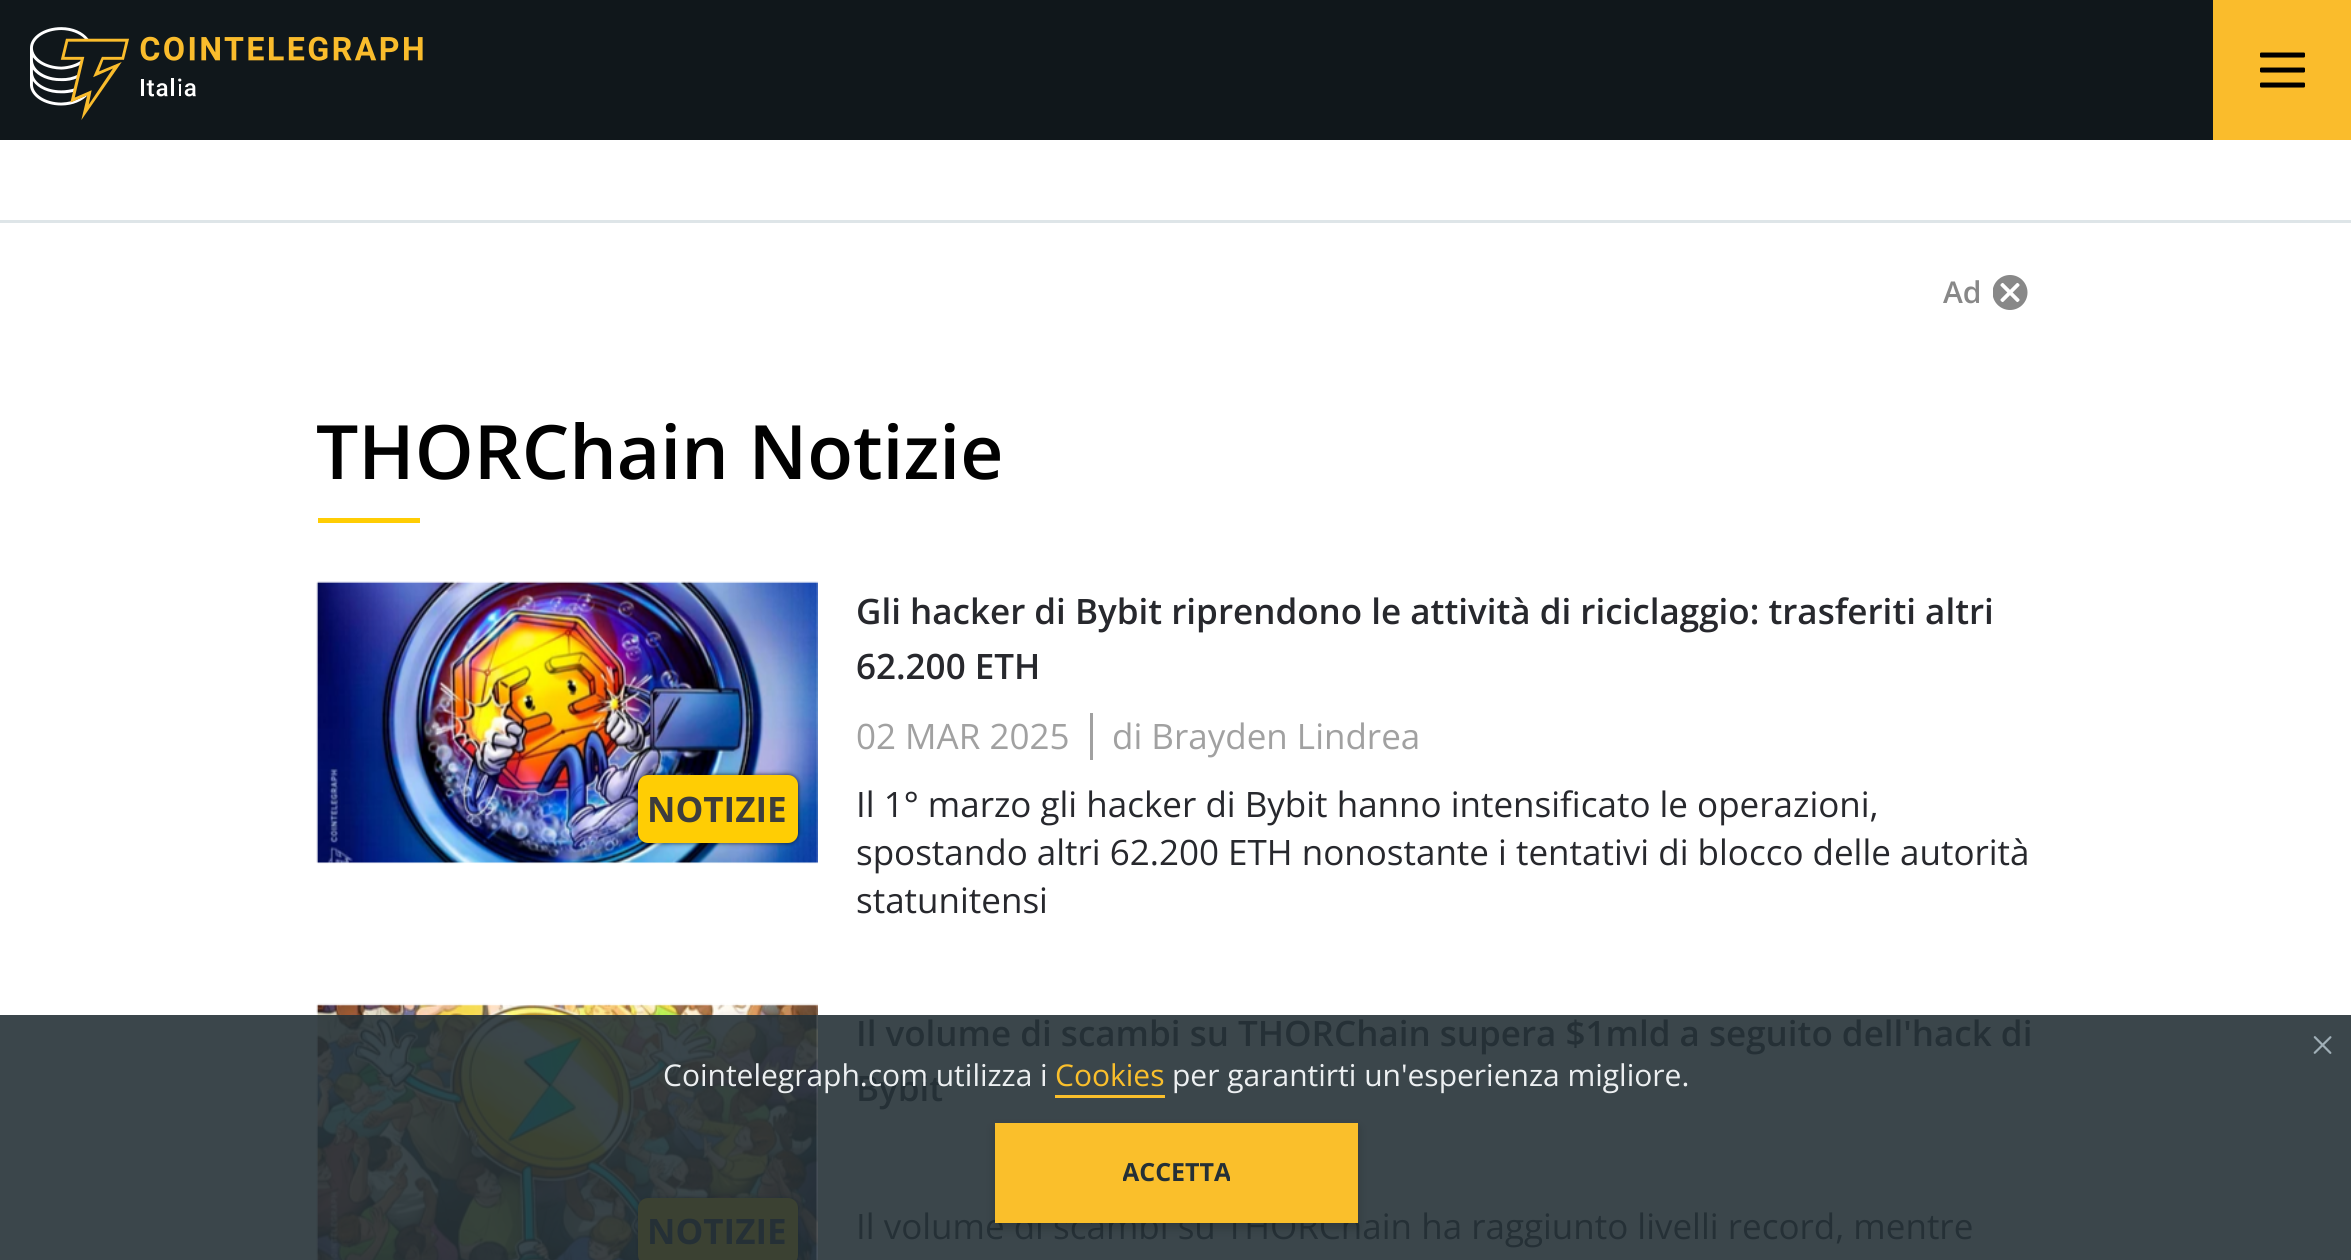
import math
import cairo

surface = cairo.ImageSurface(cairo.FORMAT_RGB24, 2351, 1260)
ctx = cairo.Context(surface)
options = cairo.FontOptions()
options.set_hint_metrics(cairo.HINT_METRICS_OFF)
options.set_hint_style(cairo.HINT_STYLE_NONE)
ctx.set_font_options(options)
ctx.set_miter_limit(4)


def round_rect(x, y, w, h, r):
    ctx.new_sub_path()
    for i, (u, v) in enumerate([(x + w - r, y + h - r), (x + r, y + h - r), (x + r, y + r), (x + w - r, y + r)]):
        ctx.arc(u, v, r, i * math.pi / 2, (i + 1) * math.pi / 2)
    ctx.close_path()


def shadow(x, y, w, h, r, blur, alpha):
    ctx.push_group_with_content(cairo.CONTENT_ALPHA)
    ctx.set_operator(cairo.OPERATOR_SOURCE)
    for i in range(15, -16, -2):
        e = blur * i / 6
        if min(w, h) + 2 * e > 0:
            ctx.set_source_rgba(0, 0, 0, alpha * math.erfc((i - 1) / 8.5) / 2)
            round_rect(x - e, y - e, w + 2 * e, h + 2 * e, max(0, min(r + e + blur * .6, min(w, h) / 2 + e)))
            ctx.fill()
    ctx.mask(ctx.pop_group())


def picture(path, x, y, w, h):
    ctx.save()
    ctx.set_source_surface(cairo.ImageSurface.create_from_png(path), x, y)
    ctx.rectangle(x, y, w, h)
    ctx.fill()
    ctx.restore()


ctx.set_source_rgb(1, 1, 1)
ctx.paint()
ctx.set_source_rgb(0.231, 0.275, 0.294)
ctx.rectangle(0, 1015, 2351, 245)
ctx.fill()
ctx.set_source_rgb(0.063, 0.09, 0.106)
ctx.rectangle(0, 0, 2213, 140)
ctx.fill()
picture("img1.png", 30, 27, 393, 93)
ctx.set_source_rgb(0.98, 0.737, 0.173)
ctx.rectangle(2213, 0, 138, 140)
ctx.fill()
picture("img2.png", 2260, 52, 45, 36)
ctx.set_source_rgb(0.871, 0.898, 0.91)
ctx.rectangle(0, 220, 2351, 3)
ctx.fill()
ctx.select_font_face("Open Sans SemiBold")
ctx.set_font_size(30)
ctx.set_source_rgb(0.533, 0.533, 0.533)
ctx.move_to(1943, 303)
ctx.show_text("Ad")
picture("img3.png", 1993, 275, 35, 35)
ctx.set_font_size(75)
ctx.set_source_rgb(0.004, 0.004, 0.004)
ctx.move_to(316, 479)
ctx.show_text("THORChain Notizie")
ctx.set_source_rgb(1, 0.804, 0.016)
ctx.rectangle(318, 518, 102, 5)
ctx.fill()
ctx.set_source_rgb(0.965, 0.969, 0.973)
ctx.rectangle(318, 583, 500, 280)
ctx.fill()
picture("img4.png", 316, 581, 502, 283)
ctx.set_source_rgb(0, 0, 0)
shadow(638, 775, 160, 68, 10, 2.5, 0.75)
ctx.set_source_rgb(1, 0.804, 0.016)
round_rect(638, 775, 160, 68, 10)
ctx.fill()
ctx.select_font_face("Open Sans", cairo.FONT_SLANT_NORMAL, cairo.FONT_WEIGHT_BOLD)
ctx.set_font_size(35)
ctx.set_source_rgb(0.239, 0.239, 0.239)
ctx.move_to(647, 822)
ctx.show_text("NOTIZIE")
ctx.select_font_face("Open Sans SemiBold")
ctx.set_source_rgb(0.153, 0.157, 0.176)
ctx.move_to(856, 624)
ctx.show_text("Gli hacker di Bybit riprendono le attività di riciclaggio: trasferiti altri")
ctx.move_to(856, 679)
ctx.show_text("62.200 ETH")
ctx.select_font_face("Open Sans")
ctx.set_source_rgb(0.631, 0.631, 0.631)
ctx.move_to(856, 749)
ctx.show_text("02 MAR 2025")
ctx.rectangle(1090, 713, 3, 47)
ctx.fill()
ctx.move_to(1112, 749)
ctx.show_text("di Brayden Lindrea")
ctx.set_source_rgb(0.153, 0.157, 0.176)
ctx.move_to(856, 817)
ctx.show_text("Il 1° marzo gli hacker di Bybit hanno intensificato le operazioni,")
ctx.move_to(856, 865)
ctx.show_text("spostando altri 62.200 ETH nonostante i tentativi di blocco delle autorità")
ctx.move_to(856, 913)
ctx.show_text("statunitensi")
ctx.set_source_rgb(0.965, 0.969, 0.973)
ctx.rectangle(318, 1005, 500, 255)
ctx.fill()
picture("img5.png", 316, 1003, 502, 257)
ctx.set_source_rgb(0.129, 0.173, 0.196)
shadow(638, 1198, 160, 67, 10, 2.5, 0.75)
ctx.set_source_rgb(0.231, 0.255, 0.196)
round_rect(638, 1198, 160, 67, 10)
ctx.fill()
ctx.select_font_face("Open Sans", cairo.FONT_SLANT_NORMAL, cairo.FONT_WEIGHT_BOLD)
ctx.set_source_rgb(0.145, 0.188, 0.212)
ctx.move_to(647, 1244)
ctx.show_text("NOTIZIE")
ctx.select_font_face("Open Sans SemiBold")
ctx.move_to(856, 1046)
ctx.show_text("Il volume di scambi su THORChain supera $1mld a seguito dell'hack di")
ctx.move_to(856, 1101)
ctx.show_text("Bybit")
ctx.select_font_face("Open Sans")
ctx.move_to(856, 1239)
ctx.show_text("Il volume di scambi su THORChain ha raggiunto livelli record, mentre")
picture("img6.png", 2313, 1036, 19, 18)
ctx.set_font_size(30)
ctx.set_source_rgb(0.925, 0.937, 0.945)
ctx.move_to(663, 1086)
ctx.show_text("Cointelegraph.com utilizza i")
ctx.set_source_rgb(0.98, 0.749, 0.173)
ctx.move_to(1055, 1086)
ctx.show_text("Cookies")
ctx.rectangle(1055, 1095, 110, 3)
ctx.fill()
ctx.set_source_rgb(0.925, 0.937, 0.945)
ctx.move_to(1172, 1086)
ctx.show_text("per garantirti un'esperienza migliore.")
ctx.set_source_rgb(0, 0, 0)
shadow(995, 1128, 363, 100, 0, 5, 0.2)
ctx.set_source_rgb(0.98, 0.749, 0.169)
ctx.rectangle(995, 1123, 363, 100)
ctx.fill()
ctx.save()
ctx.rectangle(1123, 1155, 107, 35)
ctx.clip()
ctx.select_font_face("Open Sans", cairo.FONT_SLANT_NORMAL, cairo.FONT_WEIGHT_BOLD)
ctx.set_font_size(25)
ctx.set_source_rgb(0.145, 0.188, 0.212)
ctx.move_to(1122, 1181)
ctx.show_text("ACCETTA")
ctx.restore()
surface.write_to_png("page.png")
